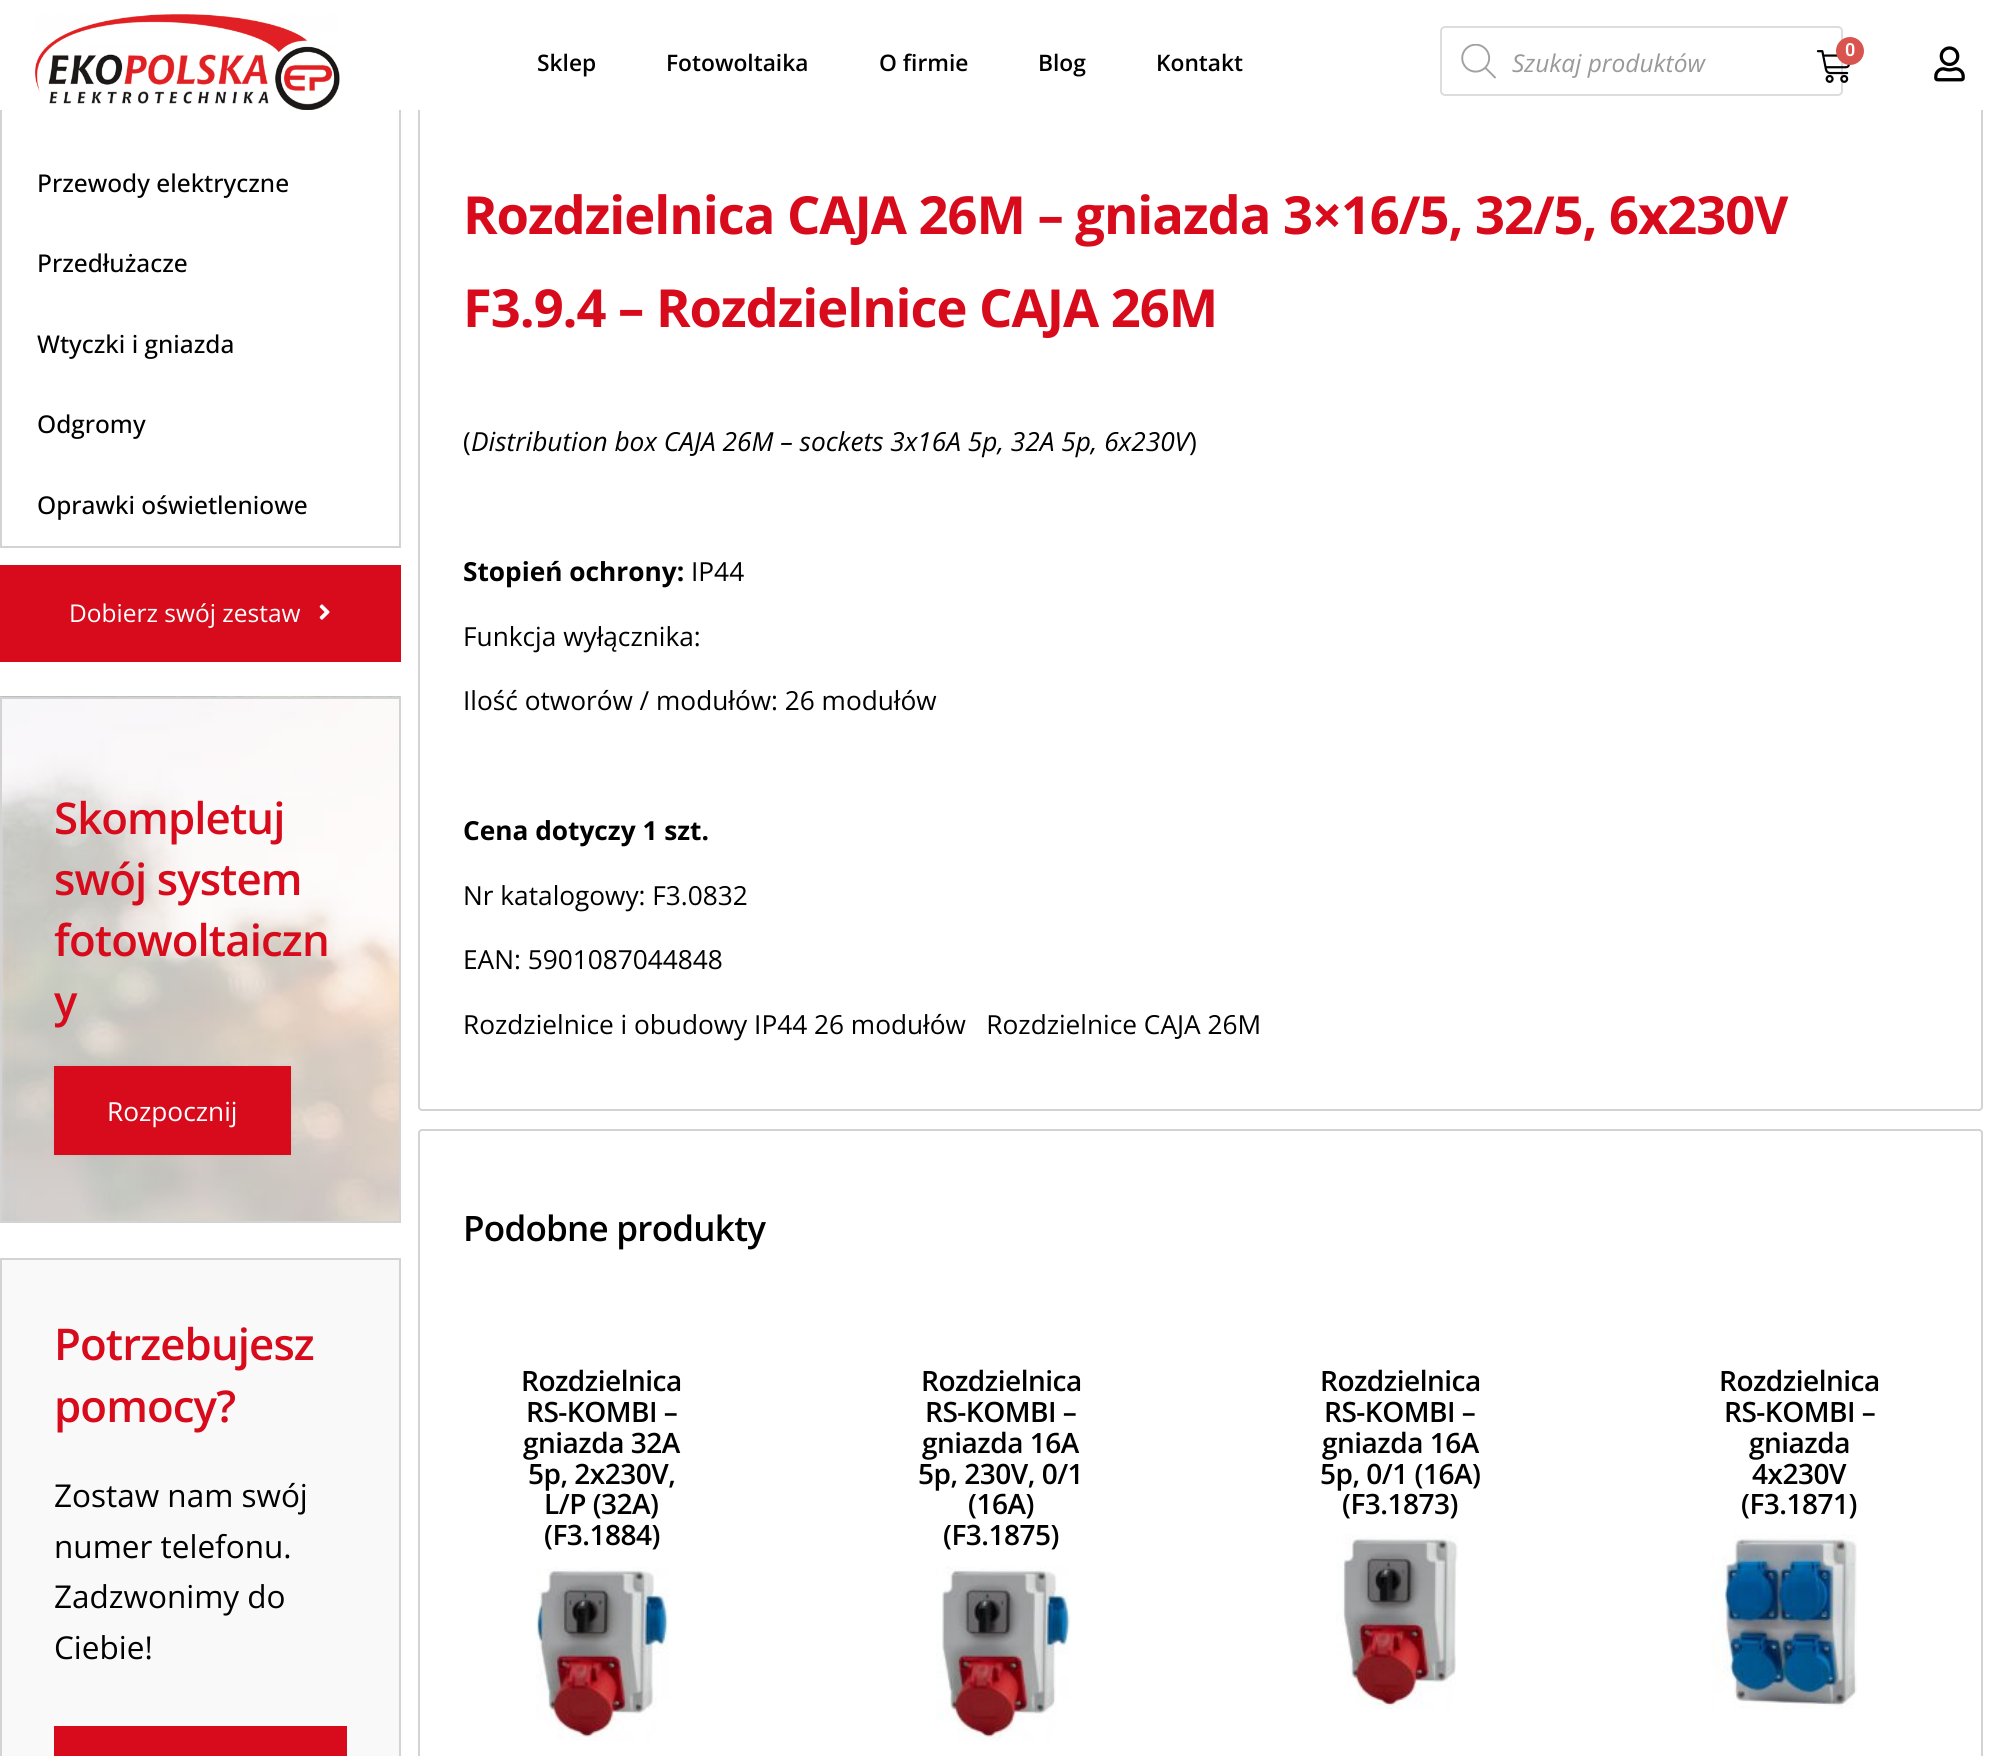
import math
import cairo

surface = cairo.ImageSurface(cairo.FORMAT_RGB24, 2000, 1756)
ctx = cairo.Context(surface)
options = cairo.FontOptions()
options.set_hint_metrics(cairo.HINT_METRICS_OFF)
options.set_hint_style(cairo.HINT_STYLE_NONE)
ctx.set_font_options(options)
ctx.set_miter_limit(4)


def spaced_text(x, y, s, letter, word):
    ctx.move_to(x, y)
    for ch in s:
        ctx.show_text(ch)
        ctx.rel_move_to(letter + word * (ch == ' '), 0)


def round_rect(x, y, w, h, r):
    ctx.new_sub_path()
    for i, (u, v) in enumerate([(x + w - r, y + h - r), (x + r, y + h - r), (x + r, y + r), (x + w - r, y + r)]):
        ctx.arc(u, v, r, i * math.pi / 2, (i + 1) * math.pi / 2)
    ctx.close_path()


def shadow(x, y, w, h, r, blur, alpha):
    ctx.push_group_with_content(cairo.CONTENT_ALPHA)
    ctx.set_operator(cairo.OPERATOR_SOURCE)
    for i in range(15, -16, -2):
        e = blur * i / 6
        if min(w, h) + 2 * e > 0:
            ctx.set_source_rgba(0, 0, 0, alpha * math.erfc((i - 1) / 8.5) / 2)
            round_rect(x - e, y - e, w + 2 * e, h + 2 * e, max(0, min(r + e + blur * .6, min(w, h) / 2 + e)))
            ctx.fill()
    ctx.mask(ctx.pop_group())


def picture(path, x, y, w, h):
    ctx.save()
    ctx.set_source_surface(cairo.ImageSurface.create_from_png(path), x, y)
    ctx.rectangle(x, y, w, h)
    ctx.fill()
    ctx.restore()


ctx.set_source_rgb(1, 1, 1)
ctx.paint()
ctx.rectangle(1, -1, 399, 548)
ctx.set_source_rgb(0.827, 0.827, 0.827)
ctx.stroke()
round_rect(419, 106, 1563, 1004, 3)
ctx.stroke()
ctx.set_source_rgb(1, 1, 1)
ctx.rectangle(0, 0, 1983, 110)
ctx.fill()
picture("img1.png", 35, 14, 305, 96)
ctx.select_font_face("Open Sans SemiBold")
ctx.set_font_size(22.75)
ctx.set_source_rgb(0, 0, 0)
ctx.move_to(537, 71)
ctx.show_text("Sklep")
ctx.move_to(666, 71)
ctx.show_text("Fotowoltaika")
ctx.move_to(879, 71)
ctx.show_text("O firmie")
ctx.move_to(1038, 71)
ctx.show_text("Blog")
ctx.move_to(1156, 71)
ctx.show_text("Kontakt")
round_rect(1441, 27, 401, 68, 4)
ctx.set_source_rgb(0.867, 0.867, 0.867)
ctx.stroke()
picture("img2.png", 1461, 44, 35, 35)
ctx.select_font_face("Open Sans", cairo.FONT_SLANT_ITALIC)
ctx.set_font_size(24.5)
ctx.set_source_rgb(0.6, 0.6, 0.6)
ctx.move_to(1512, 72)
ctx.show_text("Szukaj produktów")
picture("img3.png", 1816, 50, 35, 33)
ctx.set_source_rgb(0.851, 0.325, 0.31)
ctx.arc(1850, 51, 14, 0, 2 * math.pi)
ctx.fill()
ctx.select_font_face("Roboto SemiBold")
ctx.set_font_size(18)
ctx.set_source_rgb(1, 1, 1)
ctx.move_to(1845, 56)
ctx.show_text("0")
picture("img4.png", 1934, 46, 31, 36)
ctx.select_font_face("Open Sans Medium")
ctx.set_font_size(24.5)
ctx.set_source_rgb(0, 0, 0)
ctx.move_to(37, 192)
ctx.show_text("Przewody elektryczne")
ctx.move_to(37, 272)
ctx.show_text("Przedłużacze")
ctx.move_to(37, 353)
ctx.show_text("Wtyczki i gniazda")
ctx.move_to(37, 433)
ctx.show_text("Odgromy")
ctx.move_to(37, 514)
ctx.show_text("Oprawki oświetleniowe")
ctx.set_source_rgb(0.843, 0.043, 0.106)
ctx.rectangle(0, 565, 401, 97)
ctx.fill()
ctx.select_font_face("Open Sans")
ctx.set_source_rgb(1, 1, 1)
ctx.move_to(69, 622)
ctx.show_text("Dobierz swój zestaw")
picture("img5.png", 319, 604, 11, 16)
picture("img6.png", 0, 696, 401, 525)
ctx.rectangle(1, 698, 399, 524)
ctx.set_source_rgb(0.827, 0.827, 0.827)
ctx.stroke()
ctx.select_font_face("Open Sans SemiBold")
ctx.set_font_size(43.75)
ctx.set_source_rgb(0.843, 0.043, 0.106)
spaced_text(54, 834, "Skompletuj", -0.9, 0)
spaced_text(54, 895, "swój system", -0.9, 0)
spaced_text(54, 956, "fotowoltaiczn", -0.9, 0)
spaced_text(54, 1017, "y", -0.9, 0)
ctx.set_source_rgb(0, 0, 0)
shadow(56, 1068, 233, 85, 0, 2.5, 0.2)
ctx.set_source_rgb(0.843, 0.043, 0.106)
ctx.rectangle(54, 1066, 237, 89)
ctx.fill()
ctx.select_font_face("Open Sans")
ctx.set_font_size(26.25)
ctx.set_source_rgb(1, 1, 1)
ctx.move_to(107, 1121)
ctx.show_text("Rozpocznij")
ctx.set_source_rgb(0.976, 0.976, 0.976)
ctx.rectangle(1, 1259, 399, 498)
ctx.fill_preserve()
ctx.set_source_rgb(0.827, 0.827, 0.827)
ctx.stroke()
ctx.select_font_face("Open Sans SemiBold")
ctx.set_font_size(43.75)
ctx.set_source_rgb(0.843, 0.043, 0.106)
spaced_text(54, 1360, "Potrzebujesz", -0.9, 0)
spaced_text(54, 1422, "pomocy?", -0.9, 0)
ctx.select_font_face("Open Sans")
ctx.set_font_size(31.5)
ctx.set_source_rgb(0, 0, 0)
ctx.move_to(54, 1507)
ctx.show_text("Zostaw nam swój")
ctx.move_to(54, 1558)
ctx.show_text("numer telefonu.")
ctx.move_to(54, 1608)
ctx.show_text("Zadzwonimy do")
ctx.move_to(54, 1659)
ctx.show_text("Ciebie!")
ctx.set_source_rgb(0.843, 0.043, 0.106)
ctx.rectangle(54, 1726, 293, 30)
ctx.fill()
ctx.select_font_face("Open Sans", cairo.FONT_SLANT_NORMAL, cairo.FONT_WEIGHT_BOLD)
ctx.set_font_size(52.5)
spaced_text(463, 234, "Rozdzielnica CAJA 26M – gniazda 3×16/5, 32/5, 6x230V", -1.05, 0)
spaced_text(463, 327, "F3.9.4 – Rozdzielnice CAJA 26M", -1.05, 0)
ctx.select_font_face("Open Sans")
ctx.set_font_size(26.25)
ctx.set_source_rgb(0, 0, 0)
ctx.move_to(463, 451)
ctx.show_text("(")
ctx.select_font_face("Open Sans", cairo.FONT_SLANT_ITALIC)
ctx.move_to(471, 451)
ctx.show_text("Distribution box CAJA 26M – sockets 3x16A 5p, 32A 5p, 6x230V")
ctx.select_font_face("Open Sans")
ctx.move_to(1189, 451)
ctx.show_text(")")
ctx.select_font_face("Open Sans", cairo.FONT_SLANT_NORMAL, cairo.FONT_WEIGHT_BOLD)
ctx.move_to(463, 581)
ctx.show_text("Stopień ochrony:")
ctx.select_font_face("Open Sans")
ctx.move_to(691, 581)
ctx.show_text("IP44")
ctx.move_to(463, 646)
ctx.show_text("Funkcja wyłącznika:")
ctx.move_to(463, 710)
ctx.show_text("Ilość otworów / modułów: 26 modułów")
ctx.select_font_face("Open Sans", cairo.FONT_SLANT_NORMAL, cairo.FONT_WEIGHT_BOLD)
ctx.move_to(463, 840)
ctx.show_text("Cena dotyczy 1 szt.")
ctx.select_font_face("Open Sans")
ctx.move_to(463, 905)
ctx.show_text("Nr katalogowy: F3.0832")
ctx.move_to(463, 969)
ctx.show_text("EAN: 5901087044848")
ctx.move_to(463, 1034)
ctx.show_text("Rozdzielnice i obudowy IP44 26 modułów   Rozdzielnice CAJA 26M")
round_rect(419, 1130, 1563, 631, 3)
ctx.set_source_rgb(0.827, 0.827, 0.827)
ctx.stroke()
ctx.select_font_face("Open Sans SemiBold")
ctx.set_font_size(35)
ctx.set_source_rgb(0, 0, 0)
spaced_text(463, 1241, "Podobne produkty", -0.75, 0)
ctx.set_font_size(28)
spaced_text(521, 1391, "Rozdzielnica", -0.5, 0)
spaced_text(526, 1422, "RS-KOMBI –", -0.5, 0)
spaced_text(523, 1453, "gniazda 32A", -0.5, 0)
spaced_text(528, 1484, "5p, 2x230V,", -0.5, 0)
spaced_text(544, 1514, "L/P (32A)", -0.5, 0)
spaced_text(544, 1545, "(F3.1884)", -0.5, 0)
picture("img7.png", 536, 1567, 133, 174)
spaced_text(921, 1391, "Rozdzielnica", -0.5, 0)
spaced_text(925, 1422, "RS-KOMBI –", -0.5, 0)
spaced_text(922, 1453, "gniazda 16A", -0.5, 0)
spaced_text(918, 1484, "5p, 230V, 0/1", -0.5, 0)
spaced_text(968, 1514, "(16A)", -0.5, 0)
spaced_text(943, 1545, "(F3.1875)", -0.5, 0)
picture("img8.png", 936, 1566, 135, 175)
spaced_text(1320, 1391, "Rozdzielnica", -0.5, 0)
spaced_text(1324, 1422, "RS-KOMBI –", -0.5, 0)
spaced_text(1322, 1453, "gniazda 16A", -0.5, 0)
spaced_text(1320, 1484, "5p, 0/1 (16A)", -0.5, 0)
spaced_text(1342, 1514, "(F3.1873)", -0.5, 0)
picture("img9.png", 1336, 1534, 122, 175)
spaced_text(1719, 1391, "Rozdzielnica", -0.5, 0)
spaced_text(1724, 1422, "RS-KOMBI –", -0.5, 0)
spaced_text(1749, 1453, "gniazda", -0.5, 0)
spaced_text(1752, 1484, "4x230V", -0.5, 0)
spaced_text(1741, 1514, "(F3.1871)", -0.5, 0)
picture("img10.png", 1711, 1534, 146, 175)
surface.write_to_png("page.png")
